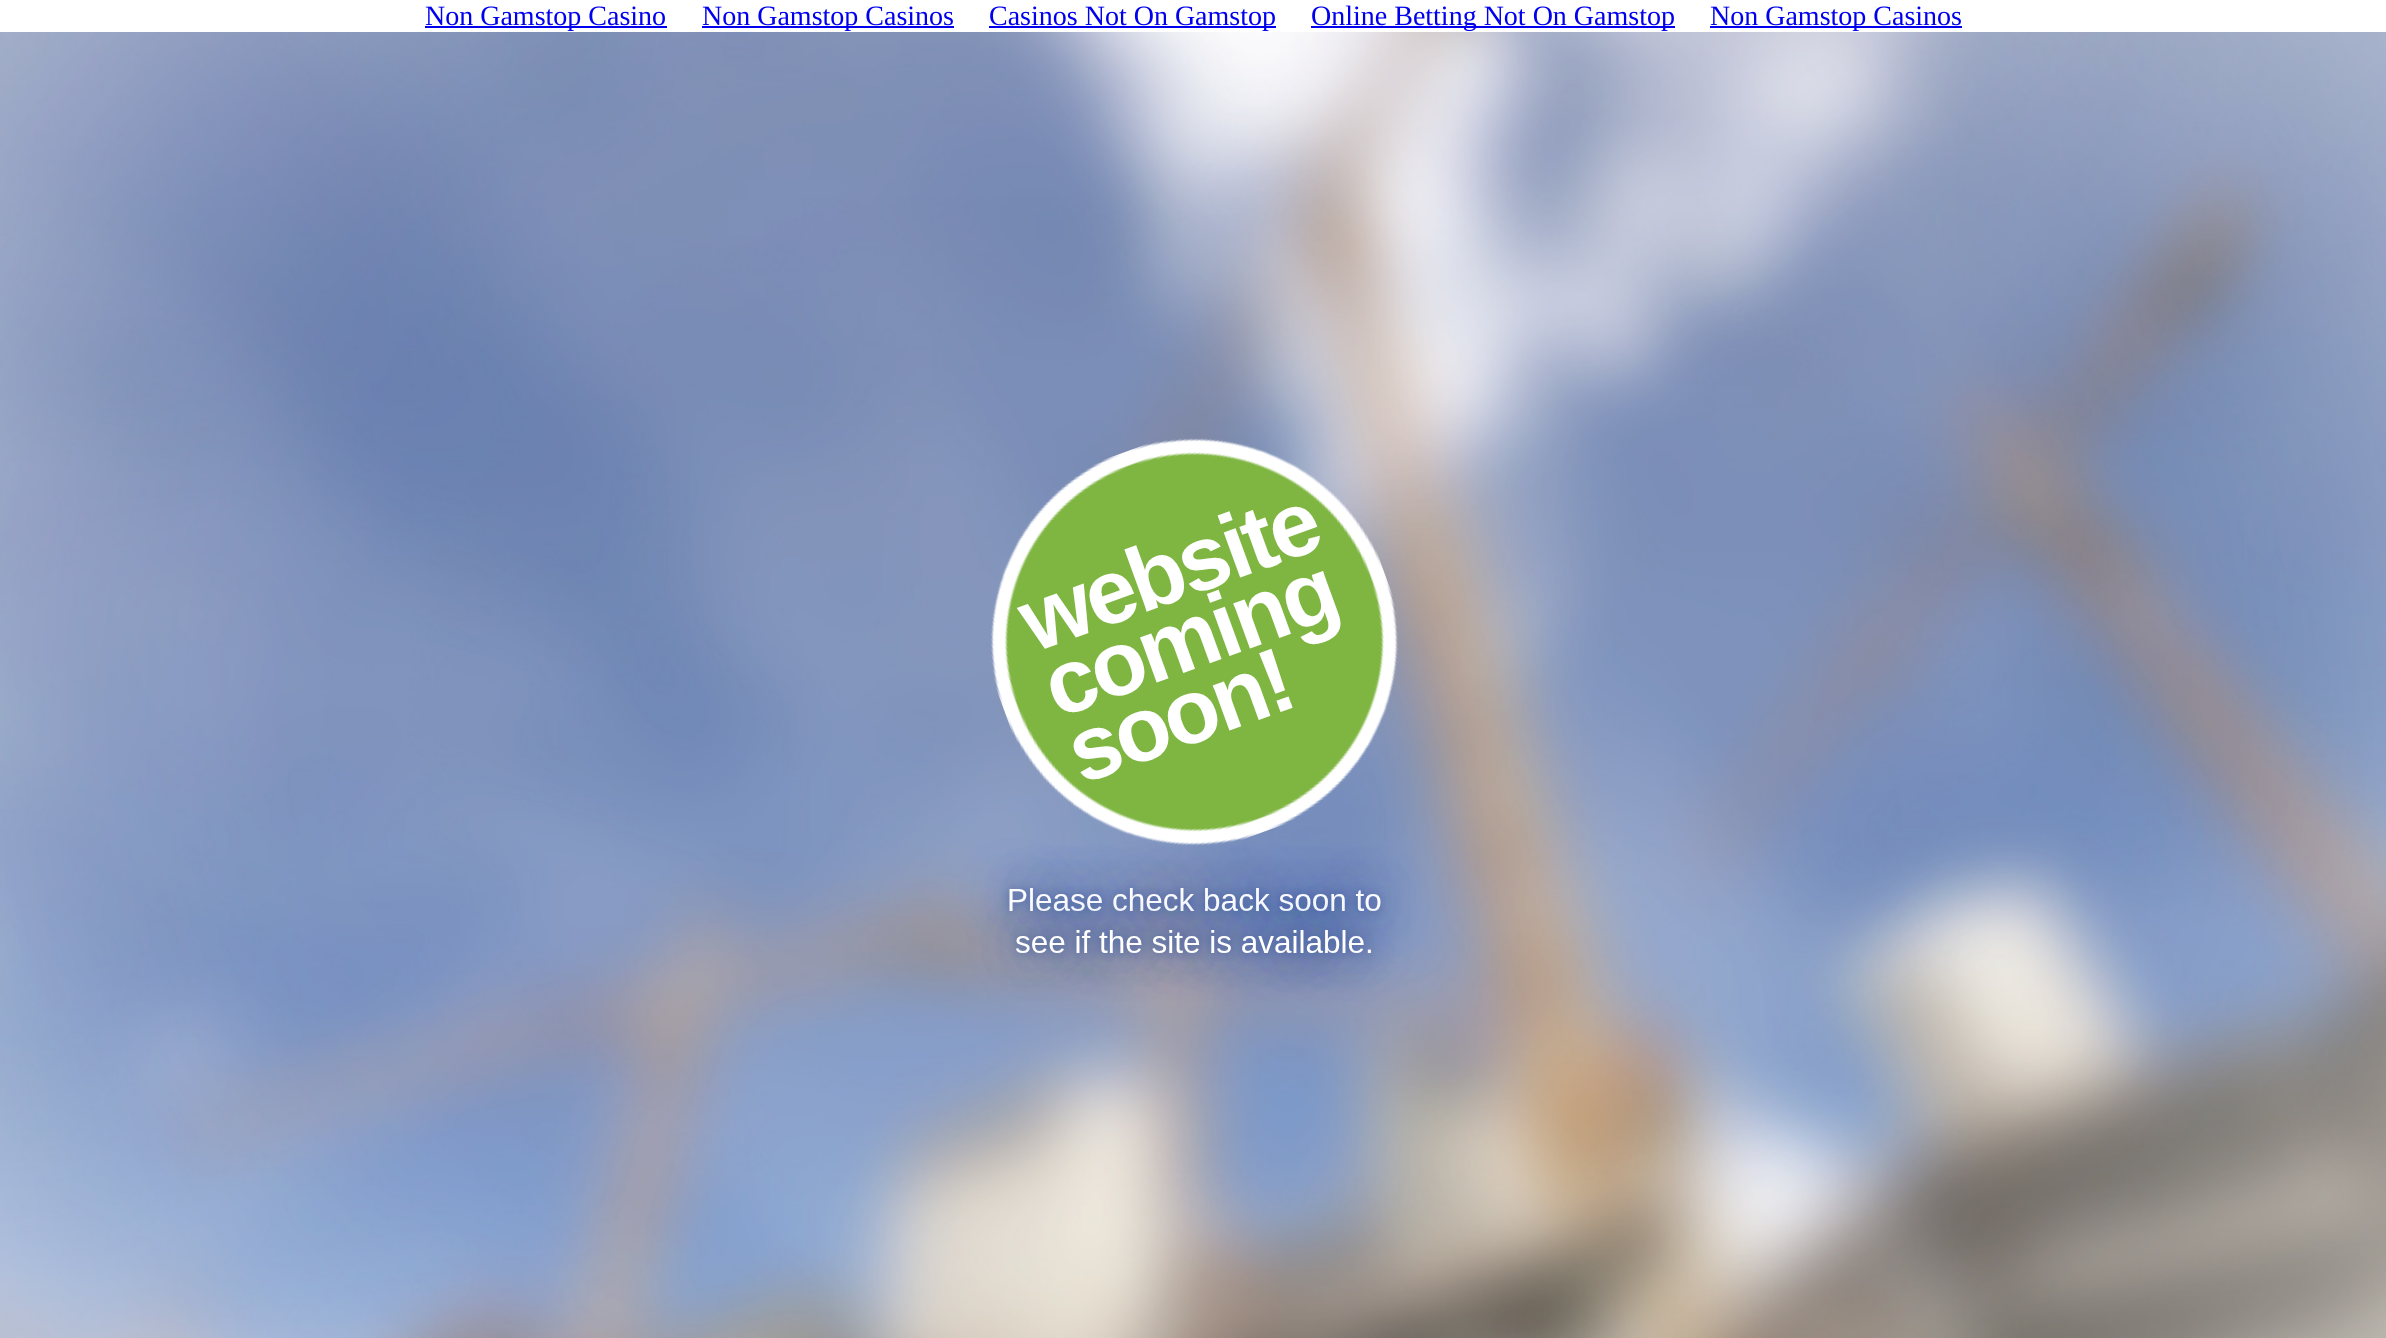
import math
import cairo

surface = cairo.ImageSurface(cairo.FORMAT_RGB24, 2386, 1338)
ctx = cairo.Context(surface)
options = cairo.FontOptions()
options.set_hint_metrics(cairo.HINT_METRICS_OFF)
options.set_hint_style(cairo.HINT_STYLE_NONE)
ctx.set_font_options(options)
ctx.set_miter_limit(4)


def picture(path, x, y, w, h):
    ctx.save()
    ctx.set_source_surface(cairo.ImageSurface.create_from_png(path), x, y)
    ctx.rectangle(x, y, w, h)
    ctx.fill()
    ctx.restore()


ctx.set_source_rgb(1, 1, 1)
ctx.paint()
ctx.set_source_rgb(0, 0, 0.933)
ctx.rectangle(425, 26, 242, 2)
ctx.fill()
ctx.select_font_face("Liberation Serif")
ctx.set_font_size(28)
ctx.move_to(425, 25)
ctx.show_text("Non Gamstop Casino")
ctx.rectangle(702, 26, 252, 2)
ctx.fill()
ctx.move_to(702, 25)
ctx.show_text("Non Gamstop Casinos")
ctx.rectangle(989, 26, 287, 2)
ctx.fill()
ctx.move_to(989, 25)
ctx.show_text("Casinos Not On Gamstop")
ctx.rectangle(1311, 26, 364, 2)
ctx.fill()
ctx.move_to(1311, 25)
ctx.show_text("Online Betting Not On Gamstop")
ctx.rectangle(1710, 26, 252, 2)
ctx.fill()
ctx.move_to(1710, 25)
ctx.show_text("Non Gamstop Casinos")
picture("img1.png", 0, 32, 2386, 1306)
surface.write_to_png("page.png")
